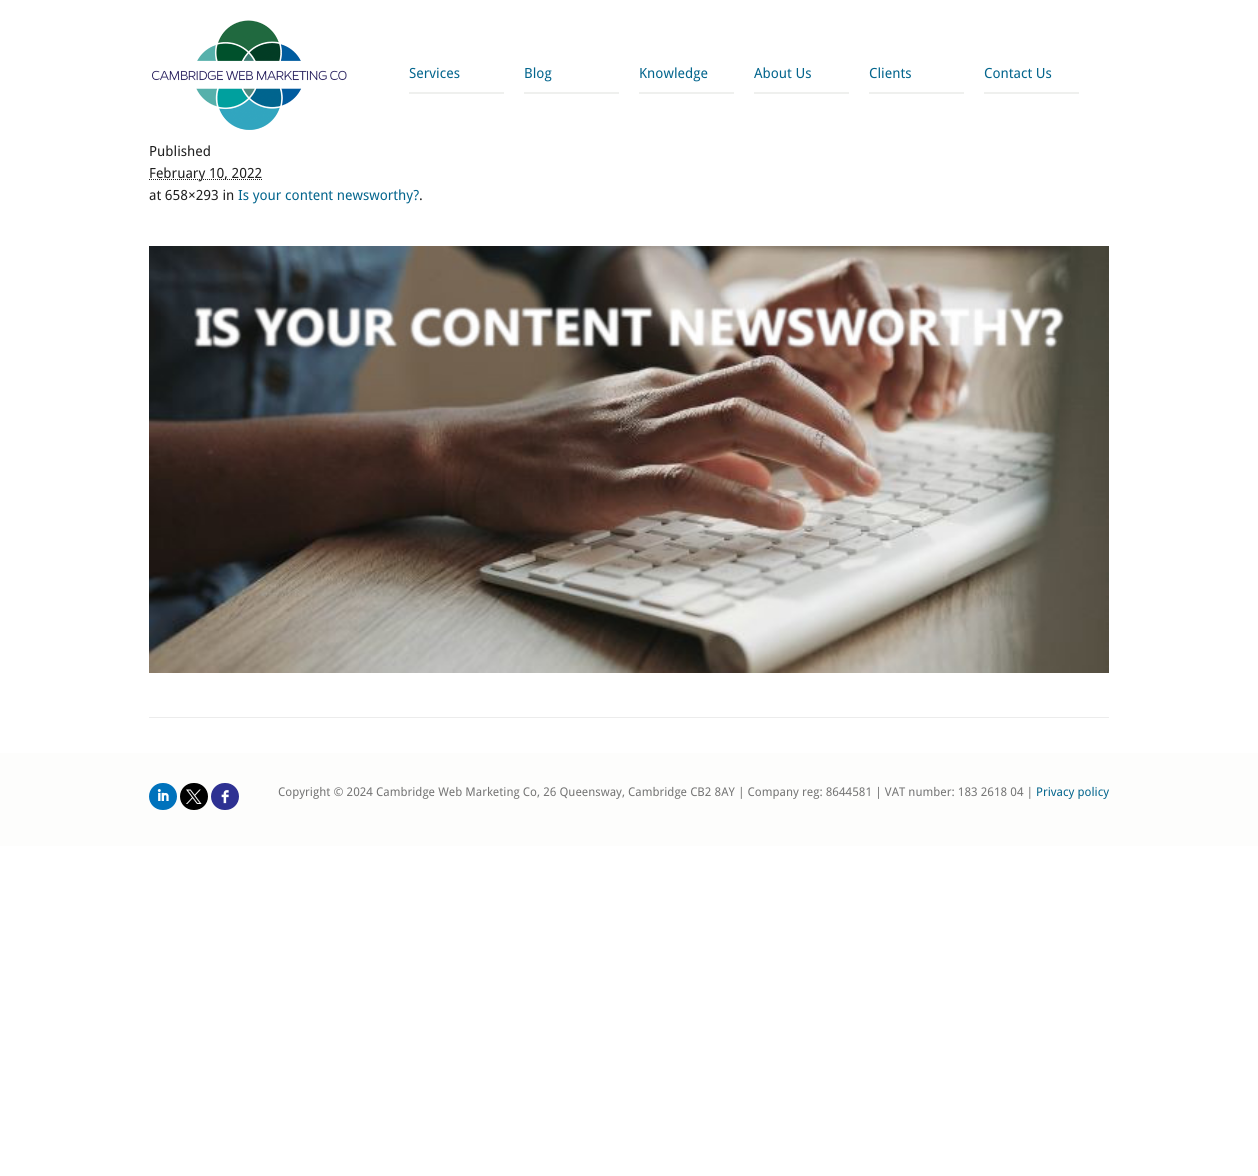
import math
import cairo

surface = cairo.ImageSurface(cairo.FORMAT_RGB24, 1258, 1176)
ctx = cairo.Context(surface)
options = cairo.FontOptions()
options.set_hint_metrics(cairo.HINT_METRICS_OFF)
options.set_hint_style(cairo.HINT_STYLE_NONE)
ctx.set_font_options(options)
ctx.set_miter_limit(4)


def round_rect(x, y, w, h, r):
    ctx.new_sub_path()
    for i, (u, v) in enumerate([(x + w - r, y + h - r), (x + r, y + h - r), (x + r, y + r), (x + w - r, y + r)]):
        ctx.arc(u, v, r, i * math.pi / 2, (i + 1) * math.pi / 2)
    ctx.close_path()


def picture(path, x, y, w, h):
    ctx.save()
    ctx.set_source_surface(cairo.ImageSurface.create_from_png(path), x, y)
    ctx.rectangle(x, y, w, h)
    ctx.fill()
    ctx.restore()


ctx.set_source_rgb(1, 1, 1)
ctx.paint()
picture("img1.png", 152, 20, 195, 110)
ctx.set_source_rgb(0.937, 0.941, 0.933)
ctx.rectangle(409, 92, 95, 2)
ctx.fill()
ctx.select_font_face("Droid Sans")
ctx.set_font_size(14)
ctx.set_source_rgb(0.012, 0.396, 0.553)
ctx.move_to(409, 78)
ctx.show_text("Services")
ctx.set_source_rgb(0.937, 0.941, 0.933)
ctx.rectangle(524, 92, 95, 2)
ctx.fill()
ctx.set_source_rgb(0.012, 0.396, 0.553)
ctx.move_to(524, 78)
ctx.show_text("Blog")
ctx.set_source_rgb(0.937, 0.941, 0.933)
ctx.rectangle(639, 92, 95, 2)
ctx.fill()
ctx.set_source_rgb(0.012, 0.396, 0.553)
ctx.move_to(639, 78)
ctx.show_text("Knowledge")
ctx.set_source_rgb(0.937, 0.941, 0.933)
ctx.rectangle(754, 92, 95, 2)
ctx.fill()
ctx.set_source_rgb(0.012, 0.396, 0.553)
ctx.move_to(754, 78)
ctx.show_text("About Us")
ctx.set_source_rgb(0.937, 0.941, 0.933)
ctx.rectangle(869, 92, 95, 2)
ctx.fill()
ctx.set_source_rgb(0.012, 0.396, 0.553)
ctx.move_to(869, 78)
ctx.show_text("Clients")
ctx.set_source_rgb(0.937, 0.941, 0.933)
ctx.rectangle(984, 92, 95, 2)
ctx.fill()
ctx.set_source_rgb(0.012, 0.396, 0.553)
ctx.move_to(984, 78)
ctx.show_text("Contact Us")
ctx.set_source_rgb(0.125, 0.125, 0.125)
ctx.move_to(149, 156)
ctx.show_text("Published")
ctx.new_path()
ctx.move_to(149, 179.5)
ctx.line_to(262.5, 179.5)
ctx.set_line_width(1)
ctx.set_dash([1, 1])
ctx.stroke()
ctx.move_to(149, 178)
ctx.show_text("February 10, 2022")
ctx.move_to(149, 200)
ctx.show_text("at 658×293 in")
ctx.set_source_rgb(0.012, 0.396, 0.553)
ctx.move_to(238, 200)
ctx.show_text("Is your content newsworthy?")
ctx.set_source_rgb(0.125, 0.125, 0.125)
ctx.move_to(419, 200)
ctx.show_text(".")
picture("img2.png", 149, 246, 960, 427)
ctx.set_source_rgb(0.925, 0.925, 0.925)
ctx.rectangle(149, 717, 960, 1)
ctx.fill()
ctx.set_source_rgb(0.992, 0.992, 0.988)
ctx.rectangle(0, 753, 1258, 93)
ctx.fill()
ctx.set_source_rgb(0, 0.447, 0.737)
round_rect(149, 783, 28, 27, 13.5)
ctx.fill()
picture("img3.png", 157, 789, 12, 12)
ctx.set_source_rgb(0, 0, 0)
round_rect(180, 783, 28, 27, 13.5)
ctx.fill()
picture("img4.png", 186, 789, 16, 15)
ctx.set_source_rgb(0.18, 0.192, 0.573)
round_rect(211, 783, 28, 27, 13.5)
ctx.fill()
picture("img5.png", 221, 790, 8, 14)
ctx.set_font_size(12)
ctx.set_source_rgb(0.459, 0.459, 0.459)
ctx.move_to(278, 796)
ctx.show_text("Copyright © 2024 Cambridge Web Marketing Co, 26 Queensway, Cambridge CB2 8AY | Company reg: 8644581 | VAT number: 183 2618 04 |")
ctx.set_source_rgb(0.012, 0.396, 0.553)
ctx.move_to(1036, 796)
ctx.show_text("Privacy policy")
surface.write_to_png("page.png")
